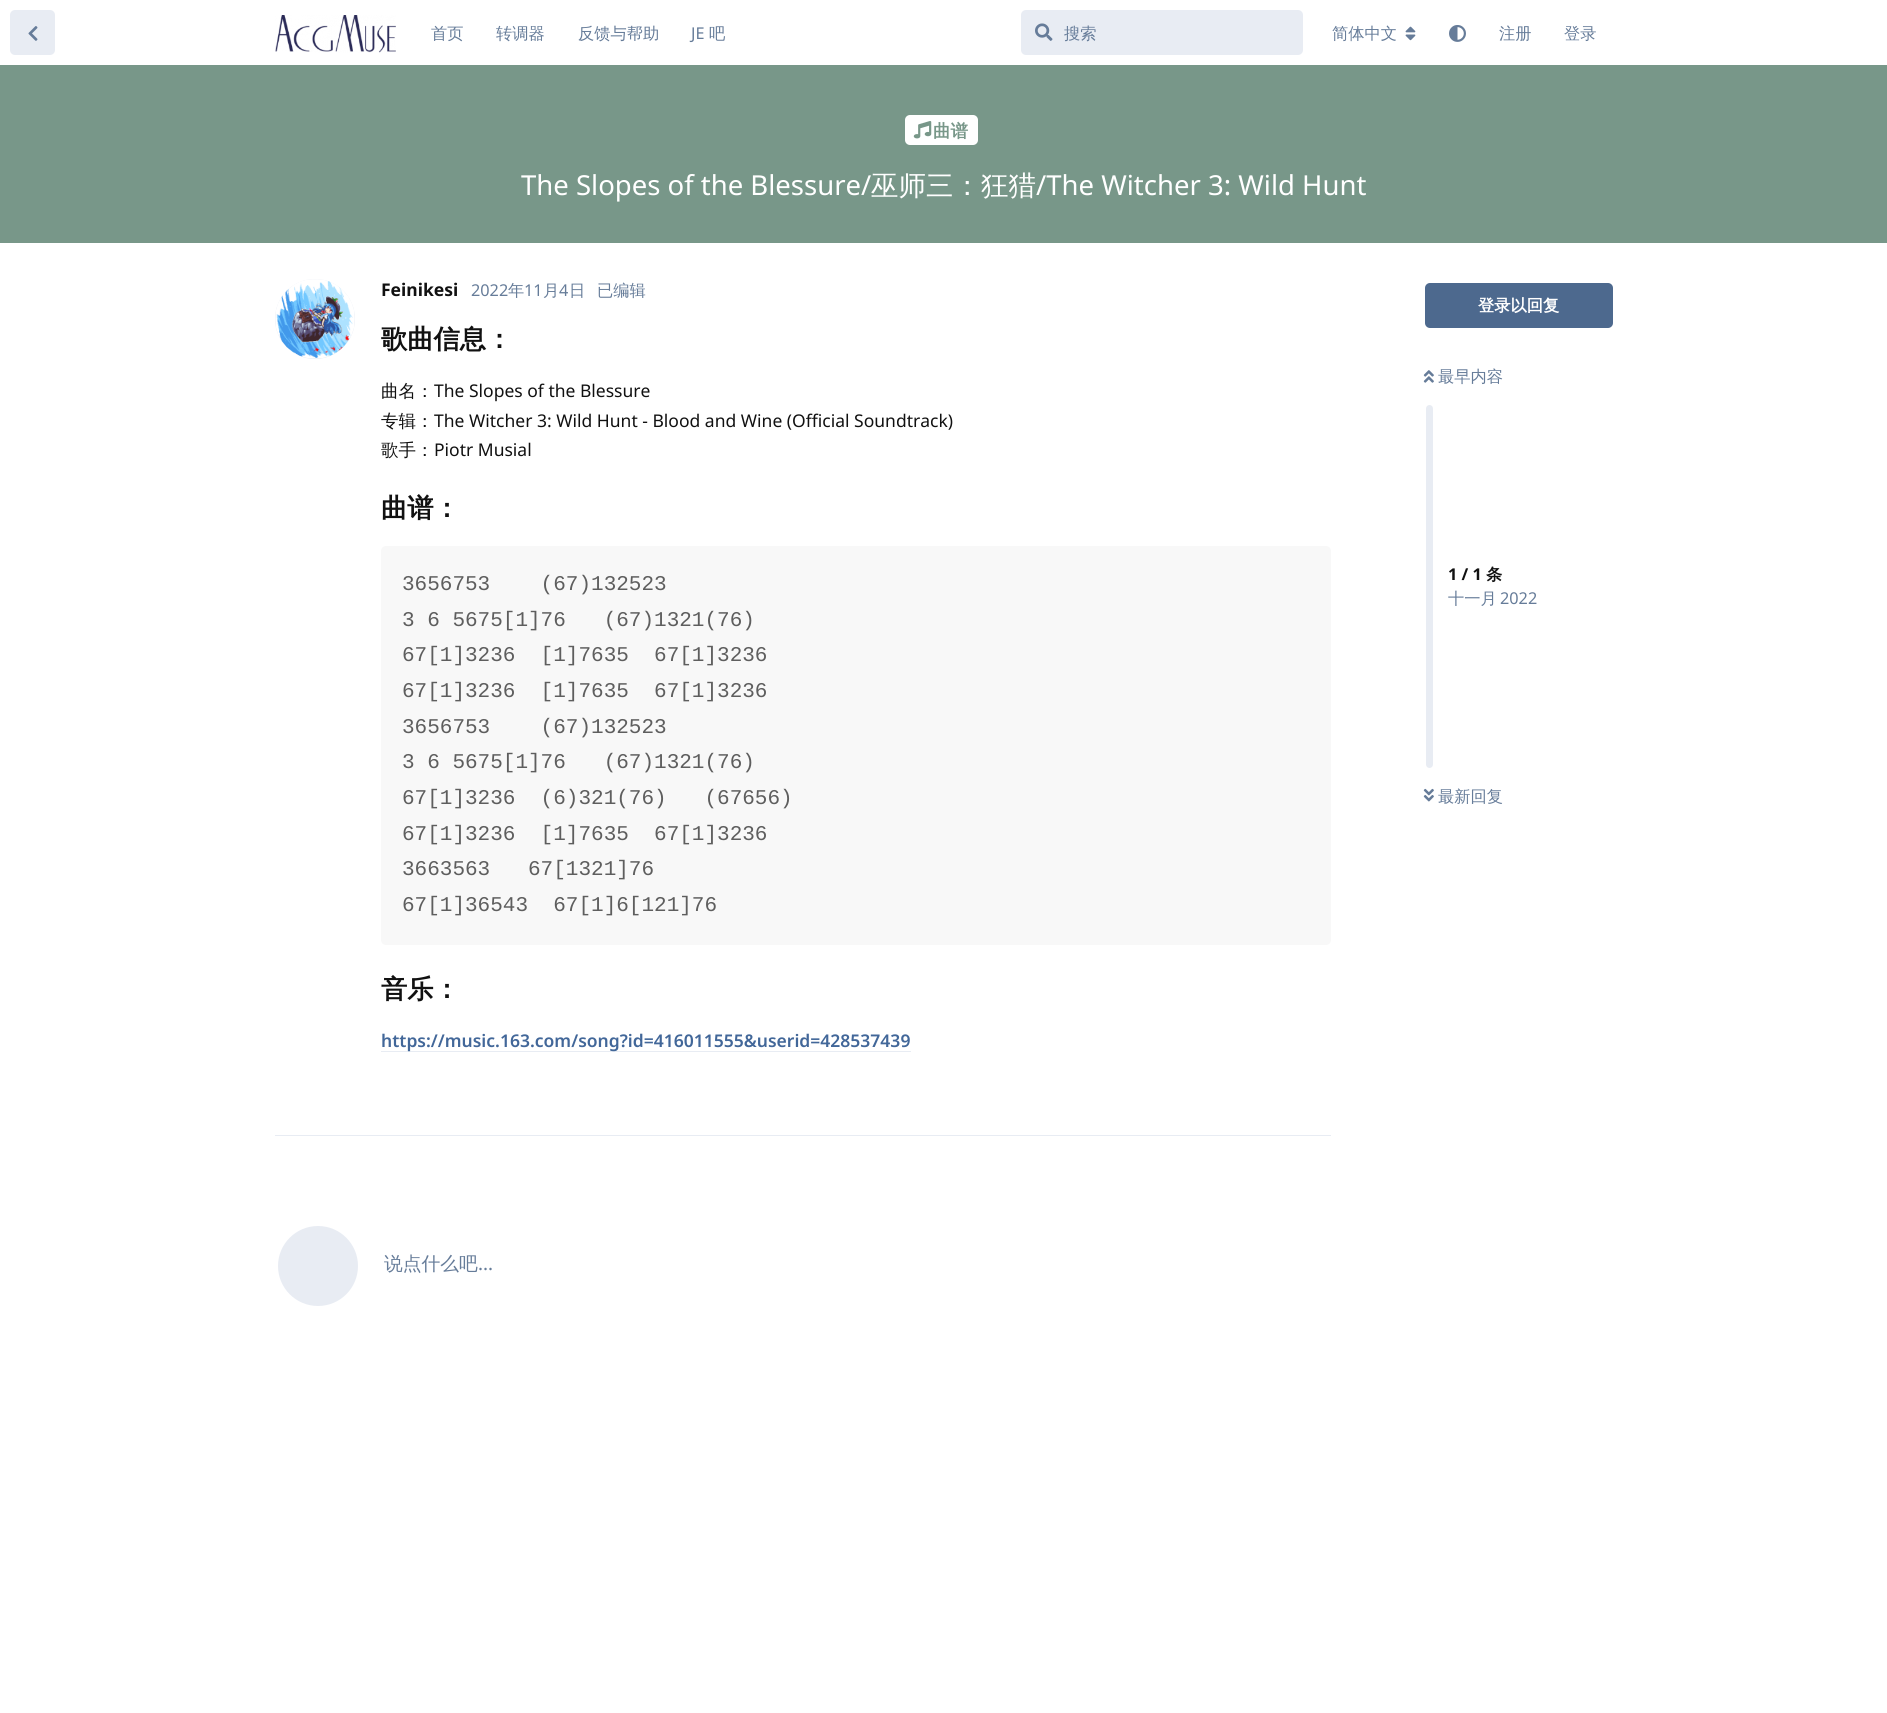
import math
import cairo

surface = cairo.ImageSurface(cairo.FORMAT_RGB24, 1887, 1713)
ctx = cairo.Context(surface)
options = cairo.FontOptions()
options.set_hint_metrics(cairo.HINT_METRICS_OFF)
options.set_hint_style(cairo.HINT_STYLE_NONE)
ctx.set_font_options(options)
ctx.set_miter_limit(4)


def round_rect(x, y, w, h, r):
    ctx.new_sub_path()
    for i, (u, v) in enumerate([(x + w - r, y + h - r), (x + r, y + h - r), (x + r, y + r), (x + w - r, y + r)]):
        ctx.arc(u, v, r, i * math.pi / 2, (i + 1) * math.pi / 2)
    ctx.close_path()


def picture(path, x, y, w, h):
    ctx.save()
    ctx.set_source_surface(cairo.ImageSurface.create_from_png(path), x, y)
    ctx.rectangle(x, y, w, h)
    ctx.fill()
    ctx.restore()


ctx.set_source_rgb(1, 1, 1)
ctx.paint()
ctx.set_source_rgb(0.91, 0.925, 0.953)
round_rect(10, 10, 45, 45, 5)
ctx.fill()
picture("img1.png", 28, 26, 10, 15)
picture("img2.png", 275, 15, 121, 38)
ctx.select_font_face("WenQuanYi Zen Hei Medium")
ctx.set_font_size(16.25)
ctx.set_source_rgb(0.4, 0.486, 0.6)
ctx.move_to(431, 39)
ctx.show_text("首页")
ctx.move_to(496, 39)
ctx.show_text("转调器")
ctx.move_to(578, 39)
ctx.show_text("反馈与帮助")
ctx.select_font_face("Noto Sans")
ctx.move_to(691, 39)
ctx.show_text("JE")
ctx.select_font_face("WenQuanYi Zen Hei Medium")
ctx.move_to(709, 39)
ctx.show_text("吧")
ctx.set_source_rgb(0.91, 0.925, 0.953)
round_rect(1021, 10, 282, 45, 5)
ctx.fill()
picture("img3.png", 1035, 23, 18, 18)
ctx.set_source_rgb(0.4, 0.486, 0.6)
ctx.move_to(1064, 39)
ctx.show_text("搜索")
ctx.move_to(1332, 39)
ctx.show_text("简体中文")
picture("img4.png", 1405, 26, 11, 15)
picture("img5.png", 1449, 25, 17, 17)
ctx.move_to(1499, 39)
ctx.show_text("注册")
ctx.move_to(1564, 39)
ctx.show_text("登录")
ctx.set_source_rgb(0.471, 0.592, 0.537)
ctx.rectangle(0, 65, 1887, 178)
ctx.fill()
ctx.set_source_rgb(1, 1, 1)
round_rect(905, 115, 73, 30, 5)
ctx.fill()
picture("img6.png", 913, 121, 19, 18)
ctx.select_font_face("WenQuanYi Zen Hei", cairo.FONT_SLANT_NORMAL, cairo.FONT_WEIGHT_BOLD)
ctx.set_font_size(17.5)
ctx.set_source_rgb(0.471, 0.592, 0.537)
ctx.move_to(933, 137)
ctx.show_text("曲谱")
ctx.select_font_face("Noto Sans")
ctx.set_font_size(27.5)
ctx.set_source_rgb(1, 1, 1)
ctx.move_to(521, 195)
ctx.show_text("The Slopes of the Blessure/")
ctx.select_font_face("WenQuanYi Zen Hei Medium")
ctx.move_to(871, 195)
ctx.show_text("巫师三：狂猎")
ctx.select_font_face("Noto Sans")
ctx.move_to(1036, 195)
ctx.show_text("/The Witcher 3: Wild Hunt")
ctx.set_source_rgb(0.91, 0.925, 0.953)
ctx.rectangle(275, 1135, 1056, 1)
ctx.fill()
ctx.arc(315, 319, 40, 0, 2 * math.pi)
ctx.fill()
picture("img7.png", 275, 279, 80, 80)
ctx.select_font_face("Noto Sans", cairo.FONT_SLANT_NORMAL, cairo.FONT_WEIGHT_BOLD)
ctx.set_font_size(17.5)
ctx.set_source_rgb(0.067, 0.067, 0.067)
ctx.move_to(381, 296)
ctx.show_text("Feinikesi")
ctx.select_font_face("Noto Sans")
ctx.set_font_size(16.25)
ctx.set_source_rgb(0.4, 0.486, 0.6)
ctx.move_to(471, 296)
ctx.show_text("2022")
ctx.select_font_face("WenQuanYi Zen Hei Medium")
ctx.move_to(508, 296)
ctx.show_text("年")
ctx.select_font_face("Noto Sans")
ctx.move_to(524, 296)
ctx.show_text("11")
ctx.select_font_face("WenQuanYi Zen Hei Medium")
ctx.move_to(543, 296)
ctx.show_text("月")
ctx.select_font_face("Noto Sans")
ctx.move_to(559, 296)
ctx.show_text("4")
ctx.select_font_face("WenQuanYi Zen Hei Medium")
ctx.move_to(569, 296)
ctx.show_text("日")
ctx.move_to(597, 296)
ctx.show_text("已编辑")
ctx.select_font_face("WenQuanYi Zen Hei", cairo.FONT_SLANT_NORMAL, cairo.FONT_WEIGHT_BOLD)
ctx.set_font_size(26.25)
ctx.set_source_rgb(0.067, 0.067, 0.067)
ctx.move_to(381, 348)
ctx.show_text("歌曲信息：")
ctx.select_font_face("WenQuanYi Zen Hei Medium")
ctx.set_font_size(17.5)
ctx.move_to(381, 397)
ctx.show_text("曲名：")
ctx.select_font_face("Noto Sans")
ctx.move_to(434, 397)
ctx.show_text("The Slopes of the Blessure")
ctx.select_font_face("WenQuanYi Zen Hei Medium")
ctx.move_to(381, 427)
ctx.show_text("专辑：")
ctx.select_font_face("Noto Sans")
ctx.move_to(434, 427)
ctx.show_text("The Witcher 3: Wild Hunt - Blood and Wine (Official Soundtrack)")
ctx.select_font_face("WenQuanYi Zen Hei Medium")
ctx.move_to(381, 456)
ctx.show_text("歌手：")
ctx.select_font_face("Noto Sans")
ctx.move_to(434, 456)
ctx.show_text("Piotr Musial")
ctx.select_font_face("WenQuanYi Zen Hei", cairo.FONT_SLANT_NORMAL, cairo.FONT_WEIGHT_BOLD)
ctx.set_font_size(26.25)
ctx.move_to(381, 517)
ctx.show_text("曲谱：")
ctx.set_source_rgb(0.969, 0.969, 0.969)
round_rect(381, 546, 950, 399, 5)
ctx.fill()
ctx.select_font_face("Liberation Mono")
ctx.set_font_size(21)
ctx.set_source_rgb(0.369, 0.369, 0.369)
ctx.move_to(402, 590)
ctx.show_text("3656753    (67)132523")
ctx.move_to(402, 626)
ctx.show_text("3 6 5675[1]76   (67)1321(76)")
ctx.move_to(402, 661)
ctx.show_text("67[1]3236  [1]7635  67[1]3236")
ctx.move_to(402, 697)
ctx.show_text("67[1]3236  [1]7635  67[1]3236")
ctx.move_to(402, 733)
ctx.show_text("3656753    (67)132523")
ctx.move_to(402, 768)
ctx.show_text("3 6 5675[1]76   (67)1321(76)")
ctx.move_to(402, 804)
ctx.show_text("67[1]3236  (6)321(76)   (67656)")
ctx.move_to(402, 840)
ctx.show_text("67[1]3236  [1]7635  67[1]3236")
ctx.move_to(402, 875)
ctx.show_text("3663563   67[1321]76")
ctx.move_to(402, 911)
ctx.show_text("67[1]36543  67[1]6[121]76")
ctx.select_font_face("WenQuanYi Zen Hei", cairo.FONT_SLANT_NORMAL, cairo.FONT_WEIGHT_BOLD)
ctx.set_font_size(26.25)
ctx.set_source_rgb(0.067, 0.067, 0.067)
ctx.move_to(381, 998)
ctx.show_text("音乐：")
ctx.set_source_rgb(0.91, 0.925, 0.953)
ctx.rectangle(381, 1051, 530, 1)
ctx.fill()
ctx.select_font_face("Noto Sans SemiBold")
ctx.set_font_size(17.5)
ctx.set_source_rgb(0.259, 0.404, 0.6)
ctx.move_to(381, 1047)
ctx.show_text("https://music.163.com/song?id=416011555&userid=428537439")
ctx.set_source_rgb(0.91, 0.925, 0.953)
ctx.new_path()
ctx.arc(318, 1266, 40, 0, 2 * math.pi)
ctx.fill()
ctx.select_font_face("WenQuanYi Zen Hei Medium")
ctx.set_font_size(18.75)
ctx.set_source_rgb(0.4, 0.486, 0.6)
ctx.move_to(384, 1270)
ctx.show_text("说点什么吧")
ctx.select_font_face("Noto Sans")
ctx.move_to(478, 1270)
ctx.show_text("...")
ctx.set_source_rgb(0.302, 0.412, 0.557)
round_rect(1425, 283, 188, 45, 5)
ctx.fill()
ctx.select_font_face("WenQuanYi Zen Hei", cairo.FONT_SLANT_NORMAL, cairo.FONT_WEIGHT_BOLD)
ctx.set_font_size(16.25)
ctx.set_source_rgb(1, 1, 1)
ctx.move_to(1478, 311)
ctx.show_text("登录以回复")
picture("img8.png", 1423, 370, 11, 13)
ctx.select_font_face("WenQuanYi Zen Hei Medium")
ctx.set_source_rgb(0.4, 0.486, 0.6)
ctx.move_to(1438, 382)
ctx.show_text("最早内容")
ctx.set_source_rgb(0.91, 0.925, 0.953)
round_rect(1426, 405, 7, 363, 3.5)
ctx.fill()
ctx.select_font_face("Noto Sans", cairo.FONT_SLANT_NORMAL, cairo.FONT_WEIGHT_BOLD)
ctx.set_source_rgb(0.067, 0.067, 0.067)
ctx.move_to(1448, 580)
ctx.show_text("1 / 1")
ctx.select_font_face("WenQuanYi Zen Hei", cairo.FONT_SLANT_NORMAL, cairo.FONT_WEIGHT_BOLD)
ctx.move_to(1486, 580)
ctx.show_text("条")
ctx.select_font_face("WenQuanYi Zen Hei Medium")
ctx.set_source_rgb(0.4, 0.486, 0.6)
ctx.move_to(1448, 604)
ctx.show_text("十一月")
ctx.select_font_face("Noto Sans")
ctx.move_to(1500, 604)
ctx.show_text("2022")
picture("img9.png", 1423, 788, 11, 14)
ctx.select_font_face("WenQuanYi Zen Hei Medium")
ctx.move_to(1438, 802)
ctx.show_text("最新回复")
surface.write_to_png("page.png")
